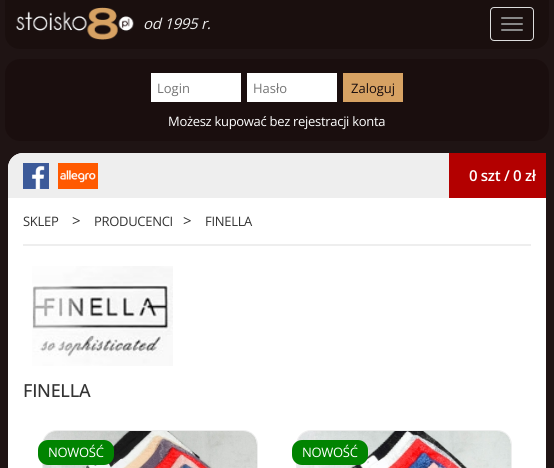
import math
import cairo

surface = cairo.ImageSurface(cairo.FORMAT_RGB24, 554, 468)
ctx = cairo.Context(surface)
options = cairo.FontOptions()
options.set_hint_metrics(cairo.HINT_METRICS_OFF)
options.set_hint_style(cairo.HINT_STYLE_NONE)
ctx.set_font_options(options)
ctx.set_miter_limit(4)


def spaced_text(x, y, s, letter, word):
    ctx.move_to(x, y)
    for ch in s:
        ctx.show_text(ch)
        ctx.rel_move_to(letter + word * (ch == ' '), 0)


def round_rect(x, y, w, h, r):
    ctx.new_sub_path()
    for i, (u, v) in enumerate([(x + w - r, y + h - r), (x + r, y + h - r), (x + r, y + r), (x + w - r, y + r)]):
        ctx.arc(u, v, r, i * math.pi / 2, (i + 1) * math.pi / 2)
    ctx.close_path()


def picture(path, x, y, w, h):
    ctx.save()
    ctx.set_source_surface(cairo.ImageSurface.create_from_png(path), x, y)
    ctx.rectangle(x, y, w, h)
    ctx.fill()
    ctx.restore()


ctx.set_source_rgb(0.122, 0.082, 0.082)
ctx.paint()
ctx.set_source_rgb(0.102, 0.059, 0.055)
ctx.new_path()
ctx.move_to(5, 0)
ctx.line_to(549, 0)
ctx.line_to(549, 34)
ctx.curve_to(549, 42.5, 542.5, 49, 534, 49)
ctx.line_to(20, 49)
ctx.curve_to(11.5, 49, 5, 42.5, 5, 34)
ctx.close_path()
ctx.fill()
round_rect(490.5, 7.5, 43, 33, 3.5)
ctx.set_source_rgb(0.867, 0.867, 0.867)
ctx.set_line_width(1)
ctx.stroke()
ctx.set_source_rgb(0.533, 0.533, 0.533)
round_rect(501, 17, 22, 2, 1)
ctx.fill()
round_rect(501, 23, 22, 2, 1)
ctx.fill()
round_rect(501, 29, 22, 2, 1)
ctx.fill()
picture("img1.png", 16, 7, 118, 33)
ctx.select_font_face("Open Sans", cairo.FONT_SLANT_ITALIC)
ctx.set_font_size(15)
ctx.set_source_rgb(0.933, 0.933, 0.933)
spaced_text(143, 29, "od 1995 r.", -0.3, 0)
ctx.set_source_rgb(0.102, 0.055, 0.055)
round_rect(5, 59, 544, 82, 15)
ctx.fill()
ctx.set_source_rgb(1, 1, 1)
ctx.rectangle(151, 73, 90, 29)
ctx.fill()
ctx.select_font_face("Open Sans")
ctx.set_font_size(13)
ctx.set_source_rgb(0.459, 0.459, 0.459)
ctx.move_to(157, 93)
ctx.show_text("Login")
ctx.set_source_rgb(1, 1, 1)
ctx.rectangle(247, 73, 90, 29)
ctx.fill()
ctx.set_source_rgb(0.459, 0.459, 0.459)
ctx.move_to(253, 93)
ctx.show_text("Hasło")
ctx.set_source_rgb(0.843, 0.635, 0.388)
ctx.rectangle(343, 73, 60, 29)
ctx.fill()
ctx.set_source_rgb(0.102, 0.055, 0.055)
ctx.move_to(351, 93)
ctx.show_text("Zaloguj")
ctx.set_source_rgb(1, 1, 1)
spaced_text(168, 126, "Możesz kupować bez rejestracji konta", -0.3, 0)
round_rect(8, 153, 538, 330, 15)
ctx.fill()
ctx.set_source_rgb(0.933, 0.933, 0.933)
ctx.new_path()
ctx.move_to(23, 153)
ctx.line_to(528, 153)
ctx.curve_to(538, 153, 546, 161, 546, 171)
ctx.line_to(546, 198)
ctx.line_to(8, 198)
ctx.line_to(8, 168)
ctx.curve_to(8, 159.5, 14.5, 153, 23, 153)
ctx.close_path()
ctx.fill()
picture("img2.png", 23, 163, 26, 26)
picture("img3.png", 58, 163, 40, 26)
ctx.set_source_rgb(0.702, 0, 0)
ctx.rectangle(449, 153, 97, 45)
ctx.fill()
ctx.select_font_face("Open Sans SemiBold")
ctx.set_font_size(15)
ctx.set_source_rgb(1, 1, 1)
spaced_text(469, 181, "0 szt / 0 zł", -0.3, 0)
ctx.set_source_rgb(0.933, 0.933, 0.933)
ctx.rectangle(23, 244, 508, 2)
ctx.fill()
ctx.select_font_face("Open Sans")
ctx.set_font_size(13)
ctx.set_source_rgb(0.2, 0.2, 0.2)
spaced_text(23, 226, "SKLEP", -0.3, 0)
ctx.set_font_size(15)
spaced_text(72, 226, ">", -0.3, 0)
ctx.set_font_size(13)
spaced_text(94, 226, "PRODUCENCI", -0.3, 0)
ctx.set_font_size(15)
spaced_text(183, 226, ">", -0.3, 0)
ctx.set_font_size(13)
spaced_text(205, 226, "FINELLA", -0.3, 0)
picture("img4.png", 32, 266, 141, 100)
ctx.select_font_face("Open Sans Medium")
ctx.set_font_size(18)
spaced_text(23, 397, "FINELLA", -0.3, 0)
round_rect(42.5, 430.5, 215, 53, 14.5)
ctx.set_source_rgb(0.933, 0.933, 0.933)
ctx.stroke()
picture("img5.png", 43, 431, 214, 37)
ctx.set_source_rgb(0.004, 0.518, 0.004)
round_rect(38, 440, 76, 25, 10)
ctx.fill()
ctx.select_font_face("Open Sans")
ctx.set_font_size(13)
ctx.set_source_rgb(1, 1, 1)
spaced_text(48, 457, "NOWOŚĆ", -0.3, 0)
round_rect(296.5, 430.5, 215, 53, 14.5)
ctx.set_source_rgb(0.933, 0.933, 0.933)
ctx.stroke()
picture("img6.png", 297, 431, 214, 37)
ctx.set_source_rgb(0.004, 0.518, 0.004)
round_rect(292, 440, 76, 25, 10)
ctx.fill()
ctx.set_source_rgb(1, 1, 1)
spaced_text(302, 457, "NOWOŚĆ", -0.3, 0)
surface.write_to_png("page.png")
